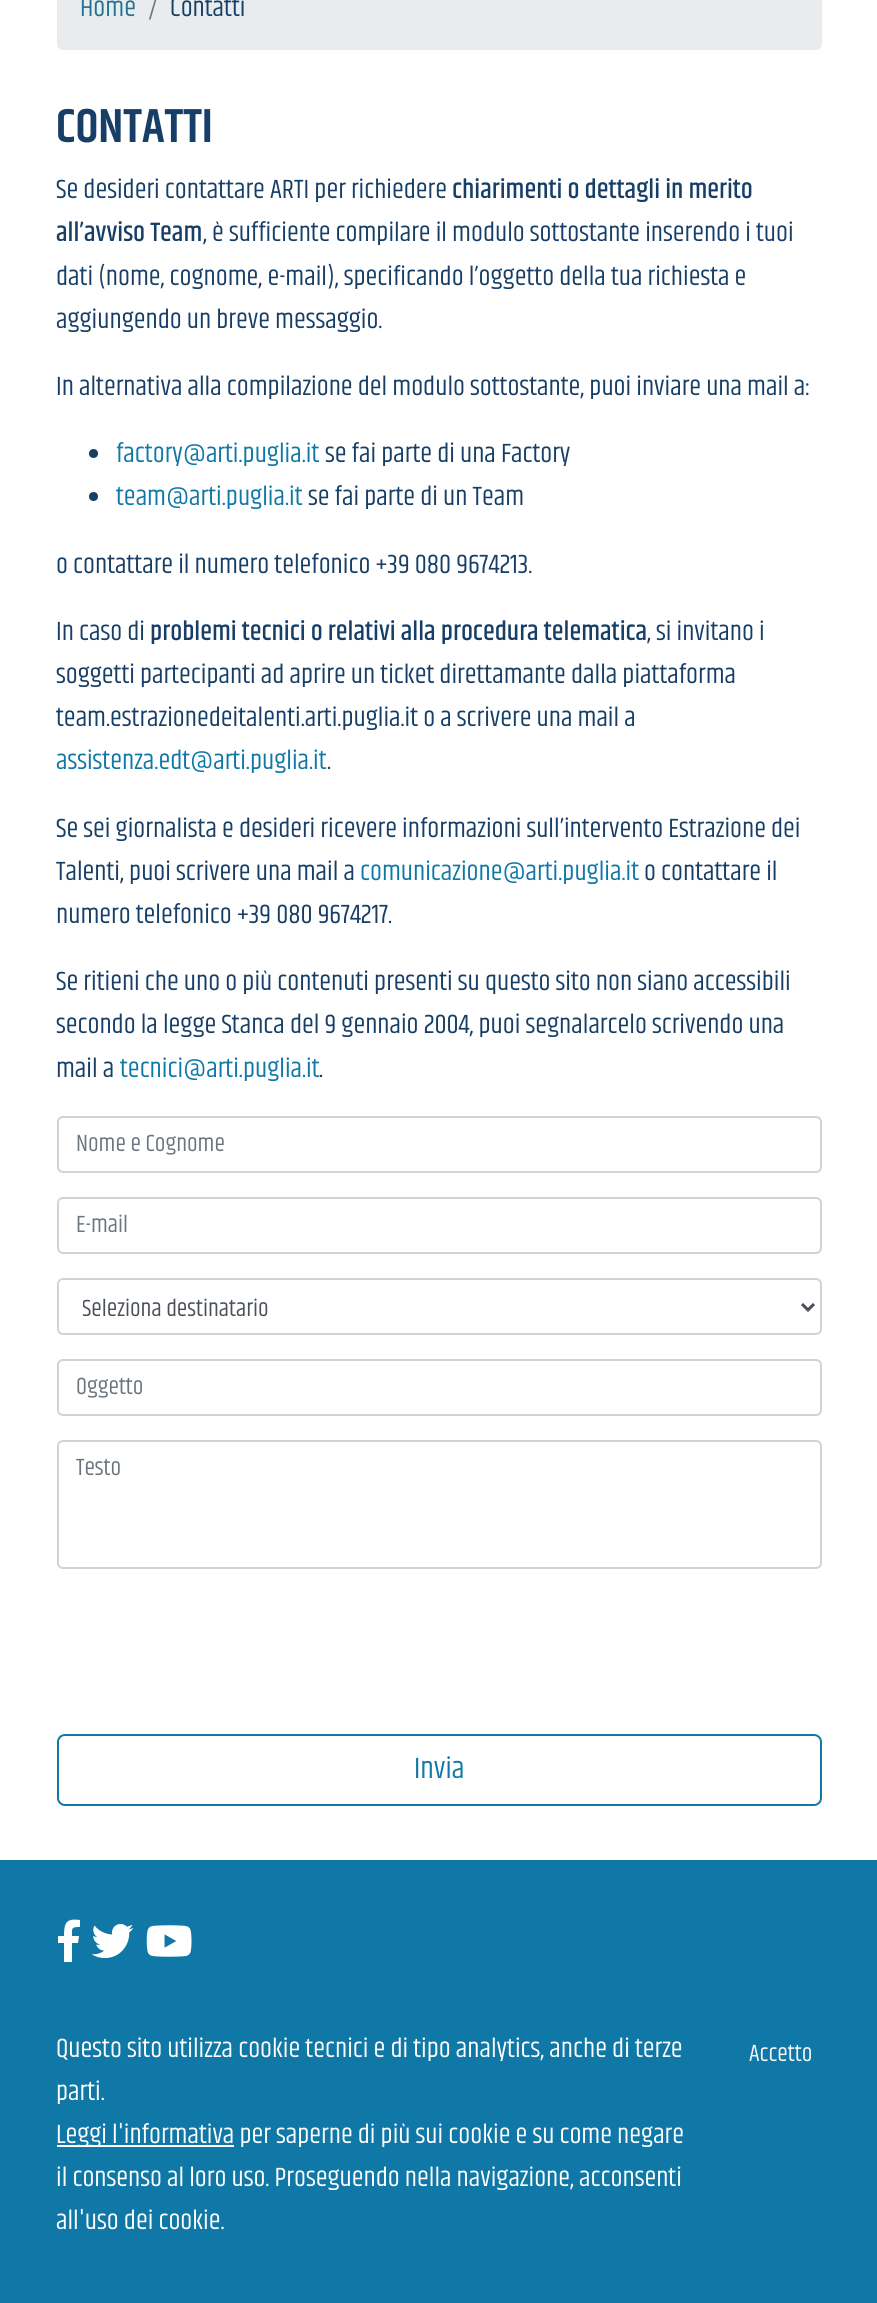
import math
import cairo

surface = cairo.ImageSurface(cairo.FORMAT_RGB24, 877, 2303)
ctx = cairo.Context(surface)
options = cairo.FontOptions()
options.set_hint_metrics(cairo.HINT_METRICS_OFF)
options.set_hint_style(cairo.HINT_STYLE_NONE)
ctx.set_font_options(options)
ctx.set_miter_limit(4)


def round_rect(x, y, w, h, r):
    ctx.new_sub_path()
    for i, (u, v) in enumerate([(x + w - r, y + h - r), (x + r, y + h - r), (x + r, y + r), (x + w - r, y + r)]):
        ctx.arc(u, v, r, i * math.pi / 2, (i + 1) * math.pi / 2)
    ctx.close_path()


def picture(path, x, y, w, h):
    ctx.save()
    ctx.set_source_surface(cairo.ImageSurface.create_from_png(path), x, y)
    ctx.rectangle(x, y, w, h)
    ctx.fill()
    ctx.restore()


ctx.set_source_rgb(1, 1, 1)
ctx.paint()
ctx.set_source_rgb(0.914, 0.925, 0.937)
round_rect(57, -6, 765, 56, 6)
ctx.fill()
ctx.select_font_face("Khand")
ctx.set_font_size(27)
ctx.set_source_rgb(0.133, 0.451, 0.573)
ctx.move_to(80, 16)
ctx.show_text("Home")
ctx.set_source_rgb(0.424, 0.459, 0.49)
ctx.move_to(148, 16)
ctx.show_text("/")
ctx.set_source_rgb(0.086, 0.243, 0.4)
ctx.move_to(170, 16)
ctx.show_text("Contatti")
ctx.select_font_face("Khand SemiBold")
ctx.set_font_size(48)
ctx.move_to(56, 142)
ctx.show_text("CONTATTI")
ctx.select_font_face("Khand")
ctx.set_font_size(27)
ctx.move_to(56, 198)
ctx.show_text("Se desideri contattare ARTI per richiedere")
ctx.select_font_face("Khand Medium")
ctx.move_to(452, 198)
ctx.show_text("chiarimenti o dettagli in merito")
ctx.move_to(56, 241)
ctx.show_text("all’avviso Team")
ctx.select_font_face("Khand")
ctx.move_to(203, 241)
ctx.show_text(", è sufficiente compilare il modulo sottostante inserendo i tuoi")
ctx.move_to(56, 285)
ctx.show_text("dati (nome, cognome, e-mail), specificando l’oggetto della tua richiesta e")
ctx.move_to(56, 328)
ctx.show_text("aggiungendo un breve messaggio.")
ctx.move_to(56, 395)
ctx.show_text("In alternativa alla compilazione del modulo sottostante, puoi inviare una mail a:")
ctx.new_path()
ctx.arc(93.5, 453.5, 4.5, 0, 2 * math.pi)
ctx.fill()
ctx.set_source_rgb(0.063, 0.471, 0.651)
ctx.move_to(116, 462)
ctx.show_text("factory@arti.puglia.it")
ctx.set_source_rgb(0.086, 0.243, 0.4)
ctx.move_to(325, 462)
ctx.show_text("se fai parte di una Factory")
ctx.new_path()
ctx.arc(93.5, 496.5, 4.5, 0, 2 * math.pi)
ctx.fill()
ctx.set_source_rgb(0.063, 0.471, 0.651)
ctx.move_to(116, 505)
ctx.show_text("team@arti.puglia.it")
ctx.set_source_rgb(0.086, 0.243, 0.4)
ctx.move_to(308, 505)
ctx.show_text("se fai parte di un Team")
ctx.move_to(56, 573)
ctx.show_text("o contattare il numero telefonico +39 080 9674213.")
ctx.move_to(56, 640)
ctx.show_text("In caso di")
ctx.select_font_face("Khand Medium")
ctx.move_to(150, 640)
ctx.show_text("problemi tecnici o relativi alla procedura telematica")
ctx.select_font_face("Khand")
ctx.move_to(647, 640)
ctx.show_text(", si invitano i")
ctx.move_to(56, 683)
ctx.show_text("soggetti partecipanti ad aprire un ticket direttamante dalla piattaforma")
ctx.move_to(56, 726)
ctx.show_text("team.estrazionedeitalenti.arti.puglia.it o a scrivere una mail a")
ctx.set_source_rgb(0.063, 0.471, 0.651)
ctx.move_to(56, 769)
ctx.show_text("assistenza.edt@arti.puglia.it")
ctx.set_source_rgb(0.086, 0.243, 0.4)
ctx.move_to(327, 769)
ctx.show_text(".")
ctx.move_to(56, 837)
ctx.show_text("Se sei giornalista e desideri ricevere informazioni sull’intervento Estrazione dei")
ctx.move_to(56, 880)
ctx.show_text("Talenti, puoi scrivere una mail a")
ctx.set_source_rgb(0.063, 0.471, 0.651)
ctx.move_to(360, 880)
ctx.show_text("comunicazione@arti.puglia.it")
ctx.set_source_rgb(0.086, 0.243, 0.4)
ctx.move_to(644, 880)
ctx.show_text("o contattare il")
ctx.move_to(56, 923)
ctx.show_text("numero telefonico +39 080 9674217.")
ctx.move_to(56, 990)
ctx.show_text("Se ritieni che uno o più contenuti presenti su questo sito non siano accessibili")
ctx.move_to(56, 1033)
ctx.show_text("secondo la legge Stanca del 9 gennaio 2004, puoi segnalarcelo scrivendo una")
ctx.move_to(56, 1077)
ctx.show_text("mail a")
ctx.set_source_rgb(0.063, 0.471, 0.651)
ctx.move_to(120, 1077)
ctx.show_text("tecnici@arti.puglia.it")
ctx.set_source_rgb(0.086, 0.243, 0.4)
ctx.move_to(319, 1077)
ctx.show_text(".")
round_rect(58, 1117, 763, 55, 5)
ctx.set_source_rgb(0.808, 0.831, 0.855)
ctx.stroke()
ctx.set_font_size(24)
ctx.set_source_rgb(0.424, 0.459, 0.49)
ctx.move_to(76, 1151)
ctx.show_text("Nome e Cognome")
round_rect(58, 1198, 763, 55, 5)
ctx.set_source_rgb(0.808, 0.831, 0.855)
ctx.stroke()
ctx.set_source_rgb(0.424, 0.459, 0.49)
ctx.move_to(76, 1232)
ctx.show_text("E-mail")
round_rect(58, 1279, 763, 55, 5)
ctx.set_source_rgb(0.808, 0.831, 0.855)
ctx.stroke()
ctx.new_path()
ctx.move_to(802, 1304)
ctx.line_to(808, 1310)
ctx.line_to(814, 1304)
ctx.set_source_rgb(0.286, 0.314, 0.341)
ctx.set_line_width(3)
ctx.stroke()
ctx.save()
ctx.rectangle(83, 1289, 696, 40)
ctx.clip()
ctx.move_to(82, 1316)
ctx.show_text("Seleziona destinatario")
ctx.restore()
round_rect(58, 1360, 763, 55, 5)
ctx.set_source_rgb(0.808, 0.831, 0.855)
ctx.set_line_width(2)
ctx.stroke()
ctx.set_source_rgb(0.424, 0.459, 0.49)
ctx.move_to(76, 1394)
ctx.show_text("Oggetto")
round_rect(58, 1441, 763, 127, 5)
ctx.set_source_rgb(0.808, 0.831, 0.855)
ctx.stroke()
ctx.set_source_rgb(0.424, 0.459, 0.49)
ctx.move_to(76, 1475)
ctx.show_text("Testo")
round_rect(58, 1735, 763, 70, 7)
ctx.set_source_rgb(0.063, 0.471, 0.651)
ctx.stroke()
ctx.set_font_size(30)
ctx.move_to(414, 1778)
ctx.show_text("Invia")
ctx.rectangle(0, 1860, 877, 443)
ctx.fill()
ctx.set_source_rgb(1, 1, 1)
ctx.new_path()
ctx.move_to(64, 1962)
ctx.line_to(64, 1943)
ctx.line_to(58, 1943)
ctx.line_to(58, 1936)
ctx.line_to(64, 1936)
ctx.curve_to(64, 1923, 66, 1918, 80, 1920)
ctx.line_to(80, 1927)
ctx.curve_to(71, 1927, 72, 1928, 72, 1936)
ctx.line_to(79, 1936)
ctx.line_to(78, 1943)
ctx.line_to(72, 1943)
ctx.line_to(72, 1962)
ctx.fill()
picture("img1.png", 91, 1923, 43, 36)
picture("img2.png", 146, 1925, 46, 32)
ctx.set_font_size(27)
ctx.move_to(56, 2057)
ctx.show_text("Questo sito utilizza cookie tecnici e di tipo analytics, anche di terze")
ctx.move_to(56, 2100)
ctx.show_text("parti.")
ctx.rectangle(57, 2145, 177, 2)
ctx.fill()
ctx.move_to(56, 2143)
ctx.show_text("Leggi l'informativa per saperne di più sui cookie e su come negare")
ctx.move_to(56, 2186)
ctx.show_text("il consenso al loro uso. Proseguendo nella navigazione, acconsenti")
ctx.move_to(56, 2229)
ctx.show_text("all'uso dei cookie.")
ctx.set_font_size(24)
ctx.set_source_rgb(0.973, 0.976, 0.98)
ctx.move_to(749, 2061)
ctx.show_text("Accetto")
surface.write_to_png("page.png")
